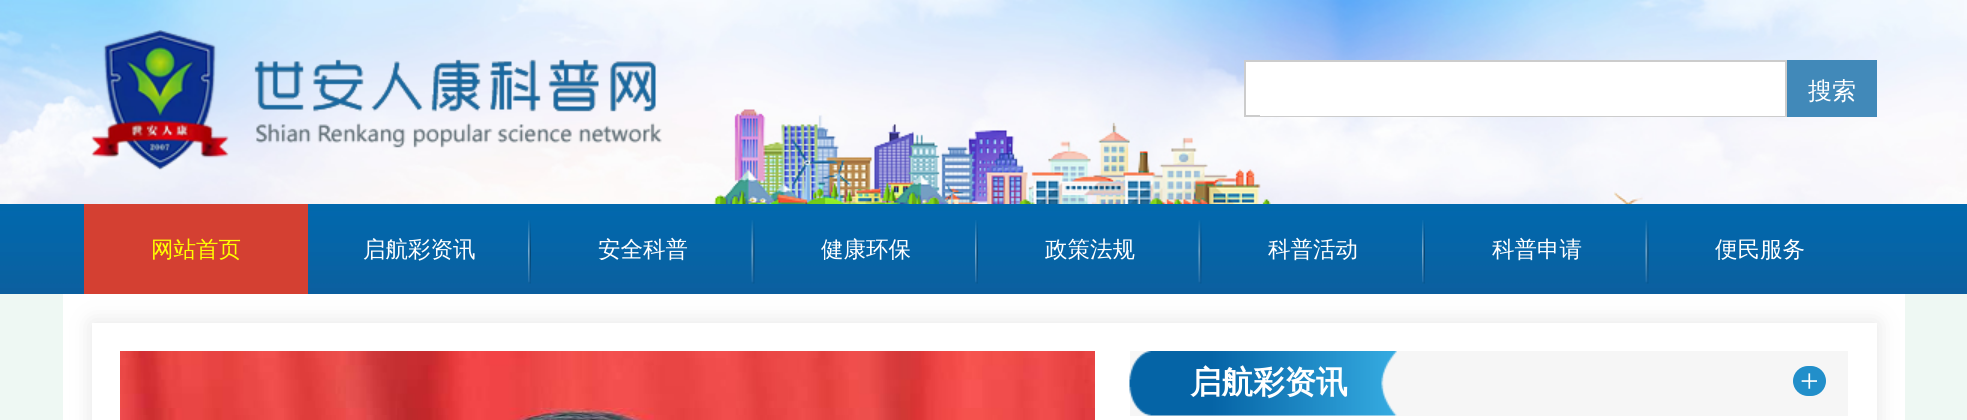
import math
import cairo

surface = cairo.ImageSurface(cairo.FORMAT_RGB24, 1967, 420)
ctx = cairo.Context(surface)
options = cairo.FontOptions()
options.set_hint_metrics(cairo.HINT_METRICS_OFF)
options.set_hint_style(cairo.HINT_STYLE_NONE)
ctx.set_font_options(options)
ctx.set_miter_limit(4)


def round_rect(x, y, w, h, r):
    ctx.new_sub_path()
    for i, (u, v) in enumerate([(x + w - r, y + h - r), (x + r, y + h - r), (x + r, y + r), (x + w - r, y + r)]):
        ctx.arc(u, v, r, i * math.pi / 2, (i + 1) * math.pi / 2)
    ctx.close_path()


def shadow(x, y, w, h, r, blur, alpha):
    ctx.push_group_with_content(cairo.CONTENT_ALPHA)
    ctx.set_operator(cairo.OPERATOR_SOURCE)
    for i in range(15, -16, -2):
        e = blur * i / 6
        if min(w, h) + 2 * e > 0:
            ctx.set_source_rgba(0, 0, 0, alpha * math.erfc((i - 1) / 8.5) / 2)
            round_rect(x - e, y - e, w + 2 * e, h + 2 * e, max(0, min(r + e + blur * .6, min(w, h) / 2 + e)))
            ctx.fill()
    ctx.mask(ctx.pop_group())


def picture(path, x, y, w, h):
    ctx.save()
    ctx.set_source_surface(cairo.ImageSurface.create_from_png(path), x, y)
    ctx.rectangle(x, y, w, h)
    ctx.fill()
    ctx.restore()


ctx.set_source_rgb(0.933, 0.969, 0.953)
ctx.paint()
picture("img1.png", 0, 0, 1967, 204)
picture("img2.png", 91, 30, 571, 140)
ctx.set_source_rgb(1, 1, 1)
ctx.rectangle(1246, 62, 14, 53)
ctx.fill()
ctx.rectangle(1245, 61, 541, 55)
ctx.set_source_rgb(0.8, 0.8, 0.8)
ctx.stroke()
ctx.set_source_rgb(1, 1, 1)
ctx.rectangle(1260, 62, 525, 54)
ctx.fill()
ctx.set_source_rgb(0.255, 0.537, 0.725)
ctx.rectangle(1787, 60, 90, 57)
ctx.fill()
ctx.select_font_face("WenQuanYi Zen Hei Medium")
ctx.set_font_size(24)
ctx.set_source_rgb(1, 1, 1)
ctx.move_to(1808, 99)
ctx.show_text("搜索")
picture("img3.png", 0, 204, 1967, 90)
ctx.rectangle(63, 294, 1842, 126)
ctx.fill()
ctx.save()
ctx.set_fill_rule(cairo.FILL_RULE_EVEN_ODD)
ctx.new_path()
ctx.move_to(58, 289)
ctx.line_to(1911, 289)
ctx.line_to(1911, 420)
ctx.line_to(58, 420)
ctx.close_path()
ctx.move_to(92, 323)
ctx.line_to(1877, 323)
ctx.line_to(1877, 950)
ctx.line_to(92, 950)
ctx.close_path()
ctx.clip()
ctx.set_source_rgb(0.898, 0.898, 0.898)
shadow(92, 323, 1785, 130, 0, 11, 1)
ctx.restore()
ctx.set_source_rgb(0.831, 0.251, 0.196)
ctx.rectangle(84, 204, 224, 90)
ctx.fill()
ctx.set_font_size(22.5)
ctx.set_source_rgb(1, 1, 0)
ctx.move_to(151, 257)
ctx.show_text("网站首页")
picture("img4.png", 528, 220, 3, 64)
ctx.set_source_rgb(1, 1, 1)
ctx.move_to(363, 257)
ctx.show_text("启航彩资讯")
picture("img5.png", 751, 220, 4, 64)
ctx.move_to(598, 257)
ctx.show_text("安全科普")
picture("img6.png", 975, 220, 3, 64)
ctx.move_to(821, 257)
ctx.show_text("健康环保")
picture("img5.png", 1198, 220, 4, 64)
ctx.move_to(1045, 257)
ctx.show_text("政策法规")
picture("img6.png", 1422, 220, 3, 64)
ctx.move_to(1268, 257)
ctx.show_text("科普活动")
picture("img5.png", 1645, 220, 4, 64)
ctx.move_to(1492, 257)
ctx.show_text("科普申请")
ctx.move_to(1715, 257)
ctx.show_text("便民服务")
picture("img7.png", 120, 351, 975, 69)
ctx.set_source_rgb(0.961, 0.961, 0.961)
ctx.rectangle(1130, 351, 718, 65)
ctx.fill()
picture("img8.png", 1129, 351, 268, 65)
ctx.select_font_face("WenQuanYi Zen Hei", cairo.FONT_SLANT_NORMAL, cairo.FONT_WEIGHT_BOLD)
ctx.set_font_size(31.5)
ctx.set_source_rgb(1, 1, 1)
ctx.move_to(1190, 393)
ctx.show_text("启航彩资讯")
ctx.set_source_rgb(0.133, 0.561, 0.792)
round_rect(1793, 366, 33, 30, 15)
ctx.fill()
ctx.select_font_face("Liberation Serif")
ctx.set_font_size(33)
ctx.set_source_rgb(1, 1, 1)
ctx.move_to(1800, 392)
ctx.show_text("+")
surface.write_to_png("page.png")
